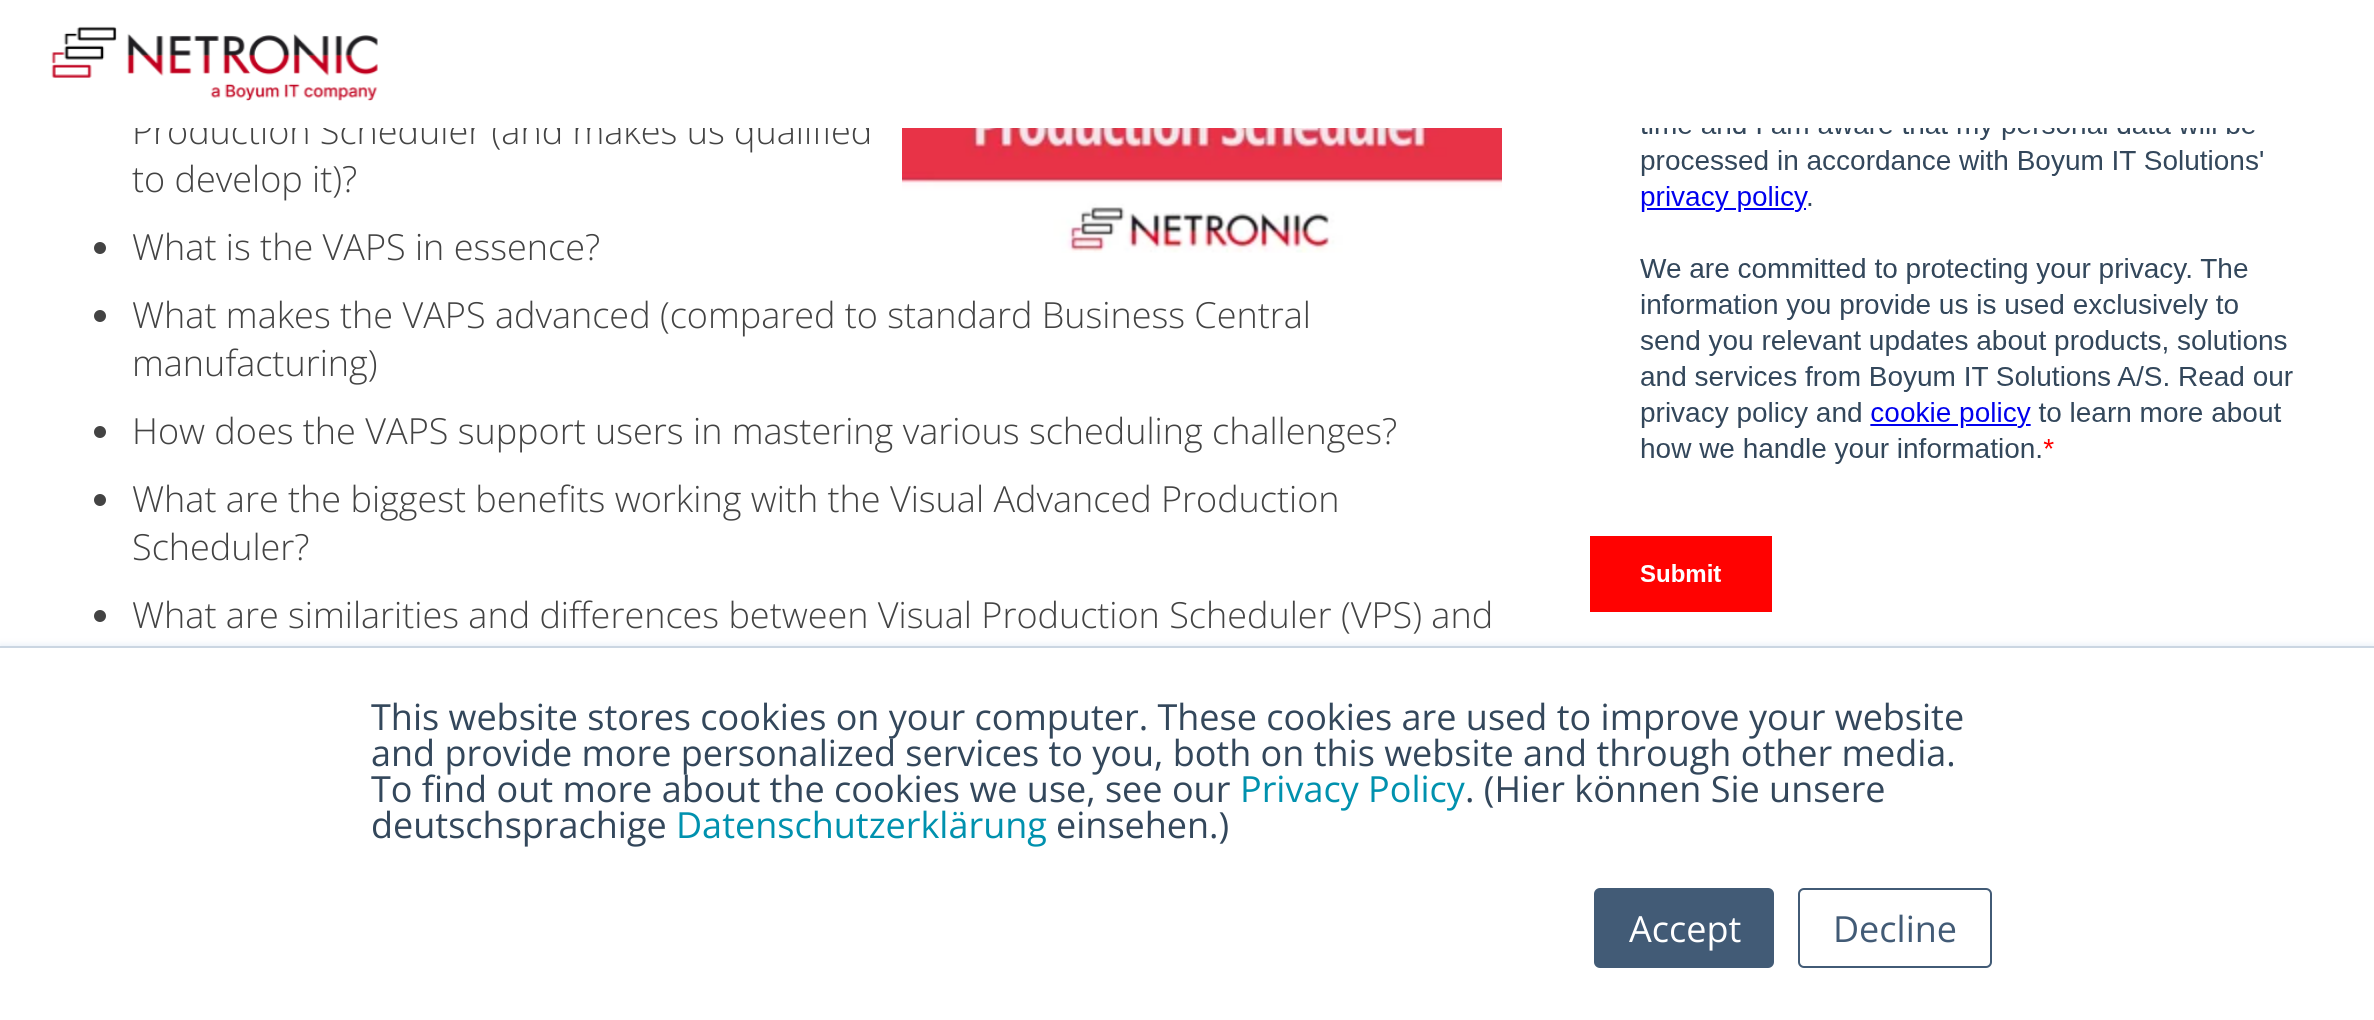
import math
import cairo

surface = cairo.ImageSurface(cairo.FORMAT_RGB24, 2374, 1020)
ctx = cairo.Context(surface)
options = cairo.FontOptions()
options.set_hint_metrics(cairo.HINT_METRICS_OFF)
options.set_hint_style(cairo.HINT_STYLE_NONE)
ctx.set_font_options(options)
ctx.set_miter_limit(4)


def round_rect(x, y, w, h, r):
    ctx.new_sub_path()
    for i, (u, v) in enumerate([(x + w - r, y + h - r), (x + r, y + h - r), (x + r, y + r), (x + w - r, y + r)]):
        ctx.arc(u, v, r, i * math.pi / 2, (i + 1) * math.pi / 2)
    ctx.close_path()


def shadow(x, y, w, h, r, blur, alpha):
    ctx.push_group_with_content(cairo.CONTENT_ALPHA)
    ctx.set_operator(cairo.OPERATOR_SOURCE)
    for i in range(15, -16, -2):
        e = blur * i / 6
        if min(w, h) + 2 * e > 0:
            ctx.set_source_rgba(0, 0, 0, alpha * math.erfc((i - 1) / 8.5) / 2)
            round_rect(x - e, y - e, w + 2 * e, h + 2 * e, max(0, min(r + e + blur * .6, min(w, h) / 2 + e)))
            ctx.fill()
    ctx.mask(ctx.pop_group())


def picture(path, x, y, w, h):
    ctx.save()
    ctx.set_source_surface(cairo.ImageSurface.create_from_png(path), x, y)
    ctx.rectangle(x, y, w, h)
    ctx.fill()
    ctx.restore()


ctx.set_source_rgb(1, 1, 1)
ctx.paint()
ctx.select_font_face("Open Sans Light")
ctx.set_font_size(36)
ctx.set_source_rgb(0.263, 0.263, 0.263)
ctx.move_to(132, 144)
ctx.show_text("Production Scheduler (and makes us qualified")
ctx.set_source_rgb(1, 1, 1)
ctx.rectangle(135, 116, 735, 12)
ctx.fill()
picture("img1.png", 51, 26, 327, 75)
ctx.set_source_rgb(0.263, 0.263, 0.263)
ctx.move_to(132, 192)
ctx.show_text("to develop it)?")
ctx.new_path()
ctx.arc(100, 248, 6, 0, 2 * math.pi)
ctx.fill()
ctx.move_to(132, 260)
ctx.show_text("What is the VAPS in essence?")
ctx.new_path()
ctx.arc(100, 316, 6, 0, 2 * math.pi)
ctx.fill()
ctx.move_to(132, 328)
ctx.show_text("What makes the VAPS advanced (compared to standard Business Central")
ctx.move_to(132, 376)
ctx.show_text("manufacturing)")
ctx.new_path()
ctx.arc(100, 432, 6, 0, 2 * math.pi)
ctx.fill()
ctx.move_to(132, 444)
ctx.show_text("How does the VAPS support users in mastering various scheduling challenges?")
ctx.new_path()
ctx.arc(100, 500, 6, 0, 2 * math.pi)
ctx.fill()
ctx.move_to(132, 512)
ctx.show_text("What are the biggest benefits working with the Visual Advanced Production")
ctx.move_to(132, 560)
ctx.show_text("Scheduler?")
ctx.new_path()
ctx.arc(100, 616, 6, 0, 2 * math.pi)
ctx.fill()
ctx.move_to(132, 628)
ctx.show_text("What are similarities and differences between Visual Production Scheduler (VPS) and")
picture("img2.png", 902, 128, 600, 125)
picture("img3.png", 1590, 128, 703, 484)
ctx.set_source_rgb(0.918, 0.941, 0.965)
shadow(0, 644, 2374, 374, 0, 3, 1)
ctx.set_source_rgb(1, 1, 1)
ctx.rectangle(0, 648, 2374, 372)
ctx.fill()
ctx.set_source_rgb(0.796, 0.839, 0.886)
ctx.rectangle(0, 646, 2374, 2)
ctx.fill()
ctx.select_font_face("Open Sans")
ctx.set_source_rgb(0.2, 0.278, 0.357)
ctx.move_to(371, 730)
ctx.show_text("This website stores cookies on your computer. These cookies are used to improve your website")
ctx.move_to(371, 766)
ctx.show_text("and provide more personalized services to you, both on this website and through other media.")
ctx.move_to(371, 802)
ctx.show_text("To find out more about the cookies we use, see our")
ctx.set_source_rgb(0, 0.569, 0.682)
ctx.move_to(1240, 802)
ctx.show_text("Privacy Policy")
ctx.set_source_rgb(0.2, 0.278, 0.357)
ctx.move_to(1465, 802)
ctx.show_text(". (Hier können Sie unsere")
ctx.move_to(371, 838)
ctx.show_text("deutschsprachige")
ctx.set_source_rgb(0, 0.569, 0.682)
ctx.move_to(676, 838)
ctx.show_text("Datenschutzerklärung")
ctx.set_source_rgb(0.2, 0.278, 0.357)
ctx.move_to(1056, 838)
ctx.show_text("einsehen.)")
ctx.set_source_rgb(0.259, 0.357, 0.463)
round_rect(1595, 889, 178, 78, 5)
ctx.fill_preserve()
ctx.stroke()
ctx.set_source_rgb(1, 1, 1)
ctx.move_to(1629, 942)
ctx.show_text("Accept")
round_rect(1799, 889, 192, 78, 5)
ctx.set_source_rgb(0.259, 0.357, 0.463)
ctx.stroke()
ctx.move_to(1833, 942)
ctx.show_text("Decline")
surface.write_to_png("page.png")
